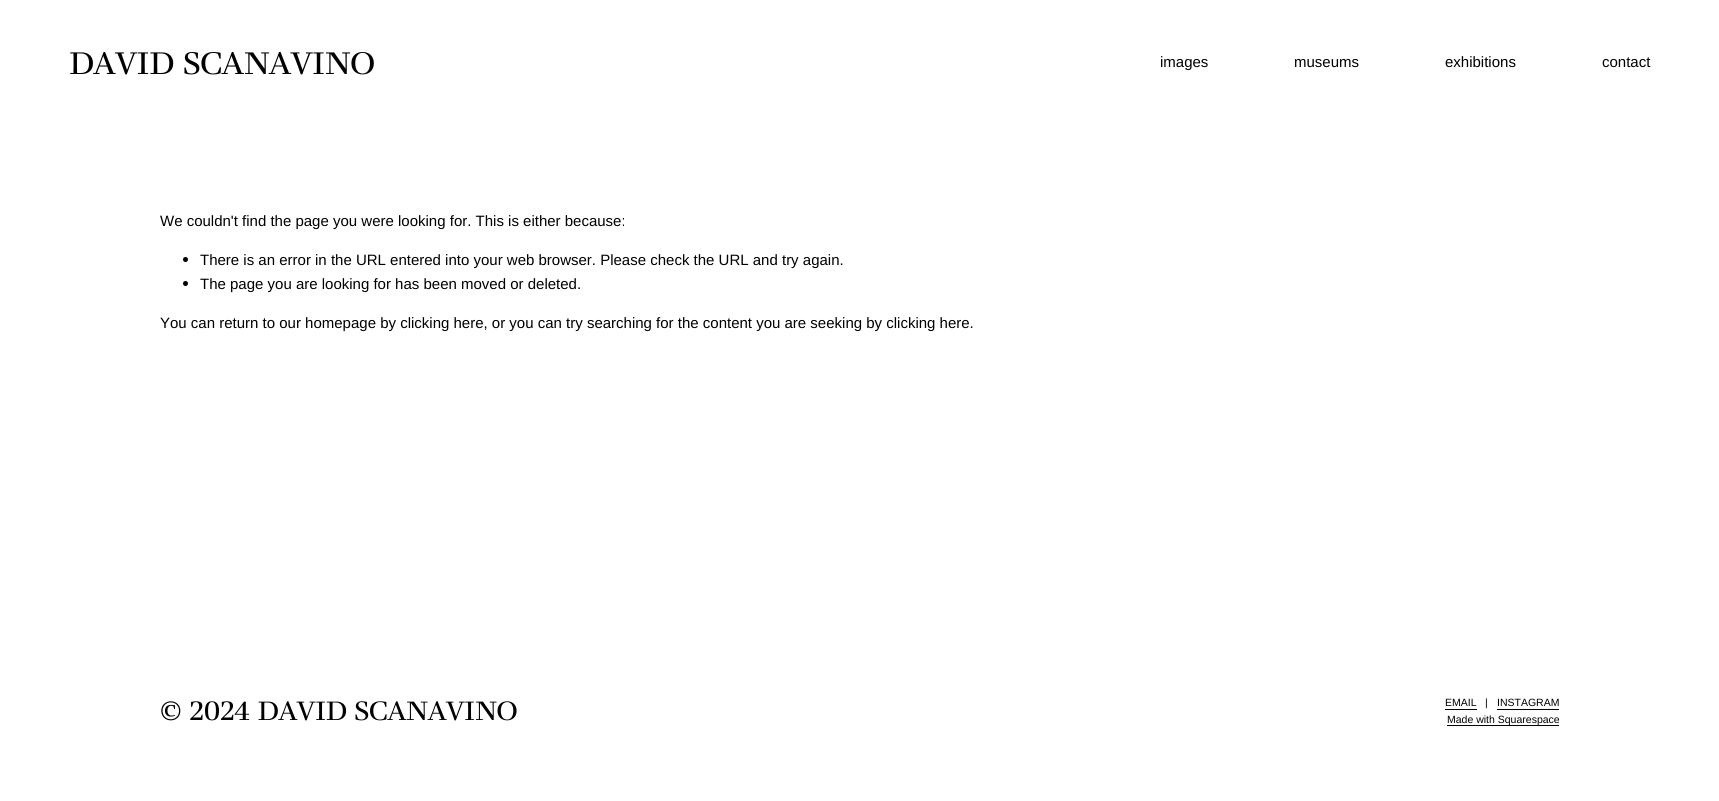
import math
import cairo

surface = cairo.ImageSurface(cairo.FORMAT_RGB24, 1719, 801)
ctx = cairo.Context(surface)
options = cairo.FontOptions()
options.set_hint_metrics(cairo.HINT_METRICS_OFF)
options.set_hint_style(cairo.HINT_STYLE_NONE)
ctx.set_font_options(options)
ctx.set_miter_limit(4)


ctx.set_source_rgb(1, 1, 1)
ctx.paint()
ctx.select_font_face("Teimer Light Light")
ctx.set_font_size(30)
ctx.set_source_rgb(0, 0, 0)
ctx.move_to(69, 74)
ctx.show_text("DAVID SCANAVINO")
ctx.select_font_face("Liberation Sans")
ctx.set_font_size(15)
ctx.move_to(1160, 67)
ctx.show_text("images")
ctx.move_to(1294, 67)
ctx.show_text("museums")
ctx.move_to(1445, 67)
ctx.show_text("exhibitions")
ctx.move_to(1602, 67)
ctx.show_text("contact")
ctx.move_to(160, 226)
ctx.show_text("We couldn't find the page you were looking for. This is either because:")
ctx.new_path()
ctx.arc(185.5, 259.5, 2.5, 0, 2 * math.pi)
ctx.fill()
ctx.move_to(200, 265)
ctx.show_text("There is an error in the URL entered into your web browser. Please check the URL and try again.")
ctx.new_path()
ctx.arc(185.5, 283.5, 2.5, 0, 2 * math.pi)
ctx.fill()
ctx.move_to(200, 289)
ctx.show_text("The page you are looking for has been moved or deleted.")
ctx.move_to(160, 328)
ctx.show_text("You can return to our homepage by clicking here, or you can try searching for the content you are seeking by clicking here.")
ctx.select_font_face("Teimer Light Light")
ctx.set_font_size(25.5)
ctx.move_to(160, 720)
ctx.show_text("© 2024 DAVID SCANAVINO")
ctx.select_font_face("Liberation Sans")
ctx.set_font_size(10.5)
ctx.move_to(1445, 706)
ctx.show_text("EMAIL")
ctx.rectangle(1445, 709, 32, 1)
ctx.fill()
ctx.move_to(1485, 706)
ctx.show_text("|")
ctx.move_to(1497, 706)
ctx.show_text("INSTAGRAM")
ctx.rectangle(1497, 709, 62, 1)
ctx.fill()
ctx.rectangle(1447, 725, 112, 1)
ctx.fill()
ctx.move_to(1447, 723)
ctx.show_text("Made with Squarespace")
surface.write_to_png("page.png")
